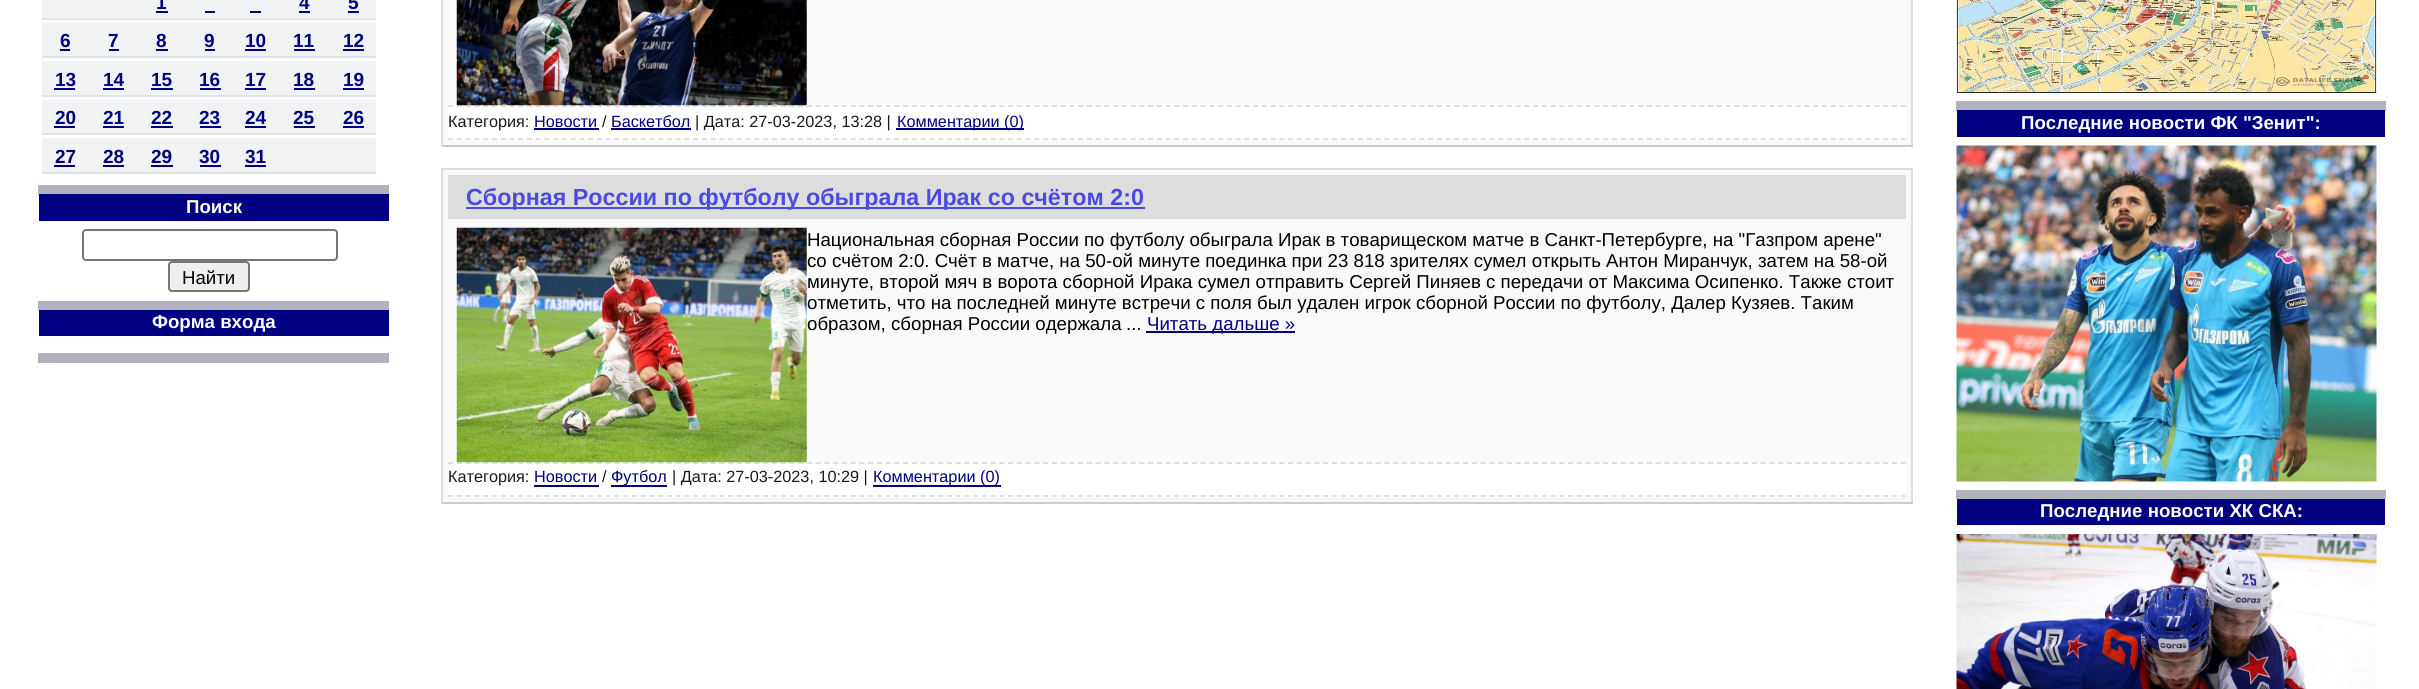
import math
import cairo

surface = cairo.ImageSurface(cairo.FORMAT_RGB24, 2419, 689)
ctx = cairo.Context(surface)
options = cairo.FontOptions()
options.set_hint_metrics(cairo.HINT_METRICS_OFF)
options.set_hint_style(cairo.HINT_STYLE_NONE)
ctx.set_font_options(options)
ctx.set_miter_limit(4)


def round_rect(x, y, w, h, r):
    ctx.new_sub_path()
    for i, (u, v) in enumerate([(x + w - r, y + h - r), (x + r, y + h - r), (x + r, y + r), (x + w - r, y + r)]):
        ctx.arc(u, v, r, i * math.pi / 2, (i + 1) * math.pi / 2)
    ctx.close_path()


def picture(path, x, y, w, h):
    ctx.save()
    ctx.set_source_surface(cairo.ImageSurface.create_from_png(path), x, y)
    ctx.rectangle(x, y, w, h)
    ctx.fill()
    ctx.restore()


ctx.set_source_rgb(1, 1, 1)
ctx.paint()
ctx.set_source_rgb(0.698, 0.698, 0.749)
ctx.rectangle(38, 185, 351, 10)
ctx.fill()
ctx.set_source_rgb(0.941, 0.949, 0.957)
ctx.rectangle(42, 0, 334, 18)
ctx.fill()
ctx.set_source_rgb(0.875, 0.89, 0.902)
ctx.rectangle(42, 18, 334, 2)
ctx.fill()
ctx.select_font_face("Liberation Sans", cairo.FONT_SLANT_NORMAL, cairo.FONT_WEIGHT_BOLD)
ctx.set_font_size(19)
ctx.set_source_rgb(0, 0, 0.502)
ctx.move_to(156, 9)
ctx.show_text("1")
ctx.rectangle(156, 11, 12, 2)
ctx.fill()
ctx.move_to(299, 9)
ctx.show_text("4")
ctx.rectangle(299, 11, 11, 2)
ctx.fill()
ctx.move_to(348, 9)
ctx.show_text("5")
ctx.rectangle(348, 11, 11, 2)
ctx.fill()
ctx.rectangle(205, 11, 10, 2)
ctx.fill()
ctx.rectangle(250, 11, 11, 2)
ctx.fill()
ctx.set_source_rgb(0.941, 0.949, 0.957)
ctx.rectangle(42, 23, 334, 33)
ctx.fill()
ctx.set_source_rgb(0.875, 0.89, 0.902)
ctx.rectangle(42, 56, 334, 2)
ctx.fill()
ctx.set_source_rgb(0, 0, 0.502)
ctx.move_to(60, 47)
ctx.show_text("6")
ctx.rectangle(60, 49, 10, 2)
ctx.fill()
ctx.move_to(108, 47)
ctx.show_text("7")
ctx.rectangle(109, 49, 10, 2)
ctx.fill()
ctx.move_to(156, 47)
ctx.show_text("8")
ctx.rectangle(156, 49, 12, 2)
ctx.fill()
ctx.move_to(204, 47)
ctx.show_text("9")
ctx.rectangle(205, 49, 10, 2)
ctx.fill()
ctx.move_to(245, 47)
ctx.show_text("10")
ctx.rectangle(245, 49, 21, 2)
ctx.fill()
ctx.move_to(293, 47)
ctx.show_text("11")
ctx.rectangle(294, 49, 21, 2)
ctx.fill()
ctx.move_to(343, 47)
ctx.show_text("12")
ctx.rectangle(343, 49, 21, 2)
ctx.fill()
ctx.set_source_rgb(0.941, 0.949, 0.957)
ctx.rectangle(42, 61, 334, 34)
ctx.fill()
ctx.set_source_rgb(0.875, 0.89, 0.902)
ctx.rectangle(42, 95, 334, 2)
ctx.fill()
ctx.set_source_rgb(0, 0, 0.502)
ctx.move_to(55, 86)
ctx.show_text("13")
ctx.rectangle(54, 88, 21, 2)
ctx.fill()
ctx.move_to(103, 86)
ctx.show_text("14")
ctx.rectangle(103, 88, 21, 2)
ctx.fill()
ctx.move_to(151, 86)
ctx.show_text("15")
ctx.rectangle(151, 88, 22, 2)
ctx.fill()
ctx.move_to(199, 86)
ctx.show_text("16")
ctx.rectangle(200, 88, 21, 2)
ctx.fill()
ctx.move_to(245, 86)
ctx.show_text("17")
ctx.rectangle(245, 88, 21, 2)
ctx.fill()
ctx.move_to(293, 86)
ctx.show_text("18")
ctx.rectangle(294, 88, 21, 2)
ctx.fill()
ctx.move_to(343, 86)
ctx.show_text("19")
ctx.rectangle(343, 88, 21, 2)
ctx.fill()
ctx.set_source_rgb(0.941, 0.949, 0.957)
ctx.rectangle(42, 100, 334, 33)
ctx.fill()
ctx.set_source_rgb(0.875, 0.89, 0.902)
ctx.rectangle(42, 133, 334, 2)
ctx.fill()
ctx.set_source_rgb(0, 0, 0.502)
ctx.move_to(55, 124)
ctx.show_text("20")
ctx.rectangle(54, 126, 21, 2)
ctx.fill()
ctx.move_to(103, 124)
ctx.show_text("21")
ctx.rectangle(103, 126, 21, 2)
ctx.fill()
ctx.move_to(151, 124)
ctx.show_text("22")
ctx.rectangle(151, 126, 22, 2)
ctx.fill()
ctx.move_to(199, 124)
ctx.show_text("23")
ctx.rectangle(200, 126, 21, 2)
ctx.fill()
ctx.move_to(245, 124)
ctx.show_text("24")
ctx.rectangle(245, 126, 21, 2)
ctx.fill()
ctx.move_to(293, 124)
ctx.show_text("25")
ctx.rectangle(294, 126, 21, 2)
ctx.fill()
ctx.move_to(343, 124)
ctx.show_text("26")
ctx.rectangle(343, 126, 21, 2)
ctx.fill()
ctx.set_source_rgb(0.941, 0.949, 0.957)
ctx.rectangle(42, 138, 334, 34)
ctx.fill()
ctx.set_source_rgb(0.875, 0.89, 0.902)
ctx.rectangle(42, 172, 334, 2)
ctx.fill()
ctx.set_source_rgb(0, 0, 0.502)
ctx.move_to(55, 163)
ctx.show_text("27")
ctx.rectangle(54, 165, 21, 2)
ctx.fill()
ctx.move_to(103, 163)
ctx.show_text("28")
ctx.rectangle(103, 165, 21, 2)
ctx.fill()
ctx.move_to(151, 163)
ctx.show_text("29")
ctx.rectangle(151, 165, 22, 2)
ctx.fill()
ctx.move_to(199, 163)
ctx.show_text("30")
ctx.rectangle(200, 165, 21, 2)
ctx.fill()
ctx.move_to(245, 163)
ctx.show_text("31")
ctx.rectangle(245, 165, 21, 2)
ctx.fill()
ctx.rectangle(39, 194, 350, 27)
ctx.fill()
ctx.set_font_size(18.67)
ctx.set_source_rgb(1, 1, 1)
ctx.move_to(186, 213)
ctx.show_text("Поиск")
ctx.set_source_rgb(0.698, 0.698, 0.749)
ctx.rectangle(38, 301, 351, 9)
ctx.fill()
round_rect(83, 230, 254, 30, 3)
ctx.set_source_rgb(0.463, 0.463, 0.463)
ctx.stroke()
ctx.set_source_rgb(0.937, 0.937, 0.937)
round_rect(169, 262, 80, 29, 3)
ctx.fill_preserve()
ctx.set_source_rgb(0.463, 0.463, 0.463)
ctx.stroke()
ctx.select_font_face("Liberation Sans")
ctx.set_source_rgb(0, 0, 0)
ctx.move_to(182, 284)
ctx.show_text("Найти")
ctx.set_source_rgb(0, 0, 0.502)
ctx.rectangle(39, 310, 350, 26)
ctx.fill()
ctx.select_font_face("Liberation Sans", cairo.FONT_SLANT_NORMAL, cairo.FONT_WEIGHT_BOLD)
ctx.set_source_rgb(1, 1, 1)
ctx.move_to(152, 328)
ctx.show_text("Форма входа")
ctx.set_source_rgb(0.698, 0.698, 0.749)
ctx.rectangle(38, 353, 351, 10)
ctx.fill()
ctx.set_source_rgb(0.973, 0.973, 0.973)
ctx.rectangle(443, 0, 1468, 145)
ctx.fill()
ctx.set_source_rgb(0.867, 0.867, 0.867)
ctx.rectangle(1911, 0, 2, 147)
ctx.fill()
ctx.set_source_rgb(0.8, 0.8, 0.8)
ctx.rectangle(441, 145, 1472, 2)
ctx.fill()
ctx.set_source_rgb(0.867, 0.867, 0.867)
ctx.rectangle(441, 0, 2, 147)
ctx.fill()
ctx.set_source_rgb(1, 1, 1)
ctx.rectangle(448, 105, 1458, 35)
ctx.fill()
ctx.new_path()
ctx.move_to(448, 106)
ctx.line_to(1906, 106)
ctx.set_source_rgb(0.867, 0.867, 0.867)
ctx.set_line_width(1.8)
ctx.set_dash([5.25, 3.5])
ctx.stroke()
picture("img1.png", 456, 0, 351, 106)
ctx.new_path()
ctx.move_to(448, 139)
ctx.line_to(1906, 139)
ctx.stroke()
ctx.select_font_face("Liberation Sans")
ctx.set_font_size(16.25)
ctx.set_source_rgb(0.102, 0.102, 0.102)
ctx.move_to(448, 127)
ctx.show_text("Категория:")
ctx.set_source_rgb(0, 0, 0.502)
ctx.move_to(534, 127)
ctx.show_text("Новости")
ctx.rectangle(534, 128, 65, 2)
ctx.fill()
ctx.set_source_rgb(0.102, 0.102, 0.102)
ctx.move_to(602, 127)
ctx.show_text("/")
ctx.set_source_rgb(0, 0, 0.502)
ctx.move_to(611, 127)
ctx.show_text("Баскетбол")
ctx.rectangle(611, 128, 80, 2)
ctx.fill()
ctx.set_source_rgb(0.102, 0.102, 0.102)
ctx.move_to(695, 127)
ctx.show_text("| Дата: 27-03-2023, 13:28 |")
ctx.set_source_rgb(0, 0, 0.502)
ctx.rectangle(896, 128, 128, 2)
ctx.fill()
ctx.move_to(897, 127)
ctx.show_text("Комментарии (0)")
ctx.set_source_rgb(0.973, 0.973, 0.973)
ctx.rectangle(443, 170, 1468, 332)
ctx.fill()
ctx.set_source_rgb(0.867, 0.867, 0.867)
ctx.rectangle(441, 168, 1472, 2)
ctx.fill()
ctx.rectangle(1911, 168, 2, 336)
ctx.fill()
ctx.set_source_rgb(0.8, 0.8, 0.8)
ctx.rectangle(441, 502, 1472, 2)
ctx.fill()
ctx.set_source_rgb(0.867, 0.867, 0.867)
ctx.rectangle(441, 168, 2, 336)
ctx.fill()
ctx.rectangle(448, 175, 1458, 44)
ctx.fill()
ctx.set_source_rgb(0.294, 0.294, 0.886)
ctx.rectangle(466, 207, 679, 2)
ctx.fill()
ctx.select_font_face("Liberation Sans", cairo.FONT_SLANT_NORMAL, cairo.FONT_WEIGHT_BOLD)
ctx.set_font_size(23.3)
ctx.move_to(466, 205)
ctx.show_text("Сборная России по футболу обыграла Ирак со счётом 2:0")
ctx.set_source_rgb(1, 1, 1)
ctx.rectangle(448, 462, 1458, 35)
ctx.fill()
ctx.new_path()
ctx.move_to(448, 463)
ctx.line_to(1906, 463)
ctx.set_source_rgb(0.867, 0.867, 0.867)
ctx.stroke()
picture("img2.png", 456, 227, 351, 236)
ctx.select_font_face("Liberation Sans")
ctx.set_font_size(18.67)
ctx.set_source_rgb(0, 0, 0)
ctx.move_to(807, 246)
ctx.show_text("Национальная сборная России по футболу обыграла Ирак в товарищеском матче в Санкт-Петербурге, на \"Газпром арене\"")
ctx.move_to(807, 267)
ctx.show_text("со счётом 2:0. Счёт в матче, на 50-ой минуте поединка при 23 818 зрителях сумел открыть Антон Миранчук, затем на 58-ой")
ctx.move_to(807, 288)
ctx.show_text("минуте, второй мяч в ворота сборной Ирака сумел отправить Сергей Пиняев с передачи от Максима Осипенко. Также стоит")
ctx.move_to(807, 309)
ctx.show_text("отметить, что на последней минуте встречи с поля был удален игрок сборной России по футболу, Далер Кузяев. Таким")
ctx.move_to(807, 330)
ctx.show_text("образом, сборная России одержала")
ctx.move_to(1126, 330)
ctx.show_text("...")
ctx.set_source_rgb(0, 0, 0.502)
ctx.rectangle(1146, 331, 149, 2)
ctx.fill()
ctx.move_to(1147, 330)
ctx.show_text("Читать дальше »")
ctx.new_path()
ctx.move_to(448, 496)
ctx.line_to(1906, 496)
ctx.set_source_rgb(0.867, 0.867, 0.867)
ctx.stroke()
ctx.set_font_size(16.25)
ctx.set_source_rgb(0.102, 0.102, 0.102)
ctx.move_to(448, 482)
ctx.show_text("Категория:")
ctx.set_source_rgb(0, 0, 0.502)
ctx.move_to(534, 482)
ctx.show_text("Новости")
ctx.rectangle(534, 485, 65, 2)
ctx.fill()
ctx.set_source_rgb(0.102, 0.102, 0.102)
ctx.move_to(602, 482)
ctx.show_text("/")
ctx.set_source_rgb(0, 0, 0.502)
ctx.rectangle(611, 485, 56, 2)
ctx.fill()
ctx.move_to(611, 482)
ctx.show_text("Футбол")
ctx.set_source_rgb(0.102, 0.102, 0.102)
ctx.move_to(672, 482)
ctx.show_text("| Дата: 27-03-2023, 10:29 |")
ctx.set_source_rgb(0, 0, 0.502)
ctx.rectangle(873, 485, 128, 2)
ctx.fill()
ctx.move_to(873, 482)
ctx.show_text("Комментарии (0)")
ctx.set_source_rgb(0.698, 0.698, 0.749)
ctx.rectangle(1956, 101, 430, 10)
ctx.fill()
picture("img3.png", 1956, 0, 421, 93)
ctx.set_source_rgb(0, 0, 0.502)
ctx.rectangle(1957, 110, 428, 27)
ctx.fill()
ctx.select_font_face("Liberation Sans", cairo.FONT_SLANT_NORMAL, cairo.FONT_WEIGHT_BOLD)
ctx.set_font_size(18.67)
ctx.set_source_rgb(1, 1, 1)
ctx.move_to(2021, 129)
ctx.show_text("Последние новости ФК \"Зенит\":")
ctx.set_source_rgb(0.698, 0.698, 0.749)
ctx.rectangle(1956, 490, 430, 9)
ctx.fill()
picture("img4.png", 1956, 145, 421, 337)
ctx.set_source_rgb(0, 0, 0.502)
ctx.rectangle(1957, 499, 428, 26)
ctx.fill()
ctx.set_source_rgb(1, 1, 1)
ctx.move_to(2040, 517)
ctx.show_text("Последние новости ХК СКА:")
picture("img5.png", 1956, 534, 421, 155)
surface.write_to_png("page.png")
